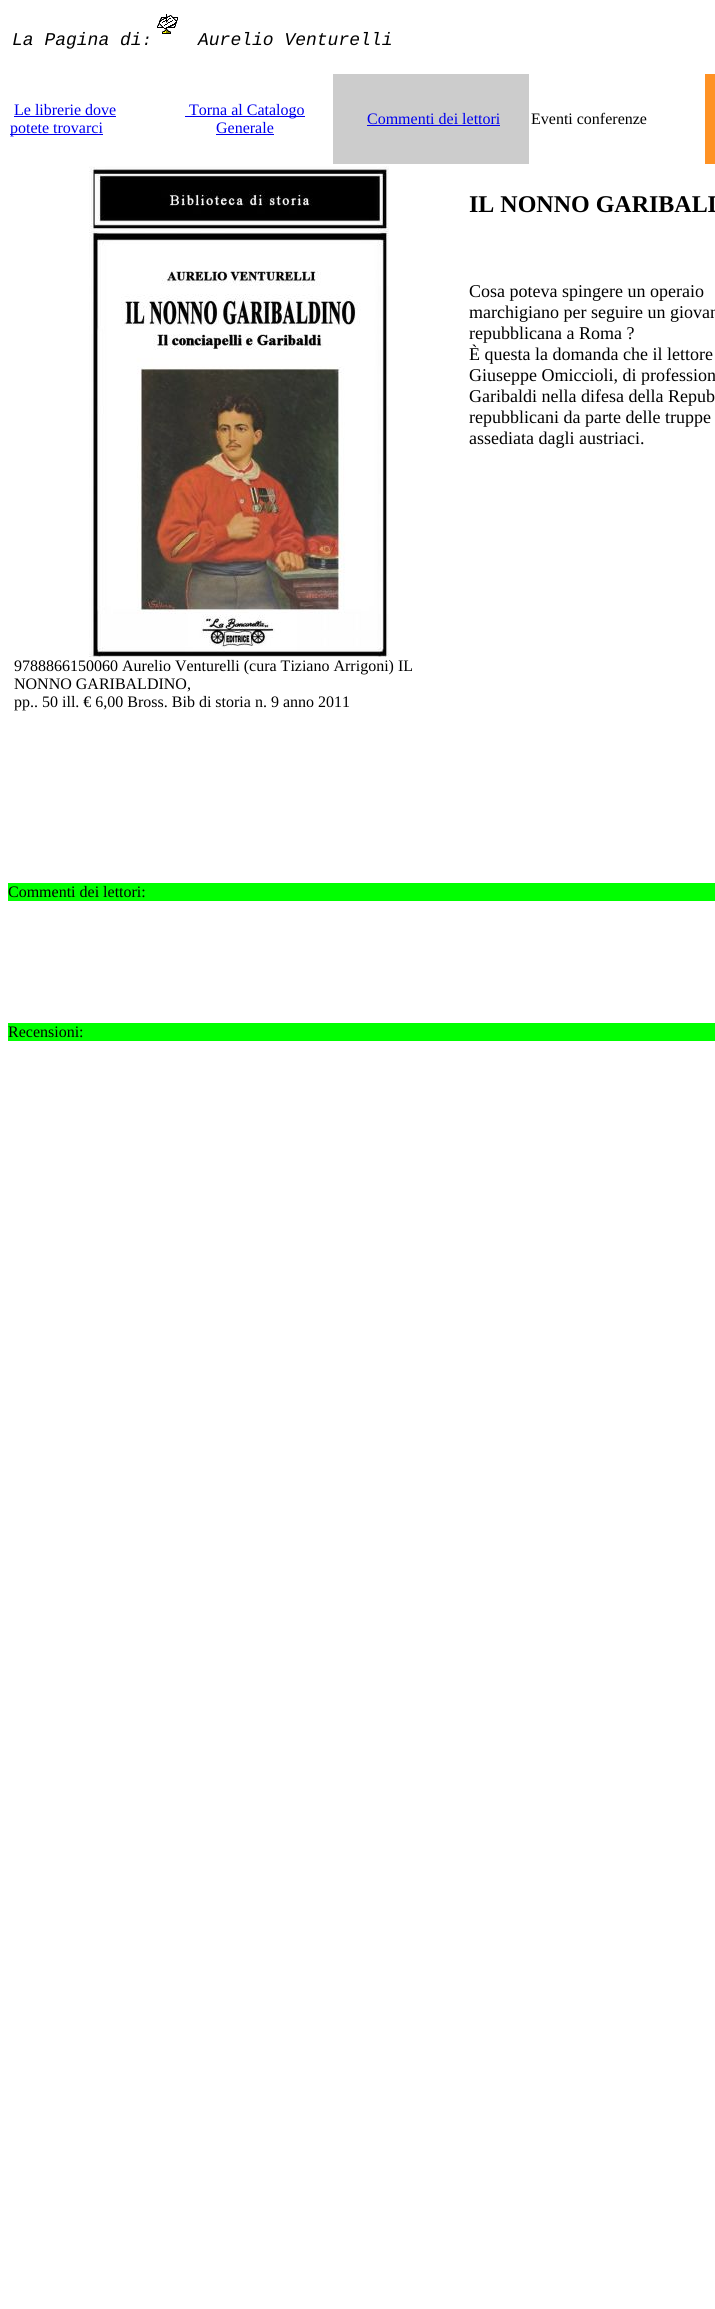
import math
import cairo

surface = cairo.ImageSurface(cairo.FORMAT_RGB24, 715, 2309)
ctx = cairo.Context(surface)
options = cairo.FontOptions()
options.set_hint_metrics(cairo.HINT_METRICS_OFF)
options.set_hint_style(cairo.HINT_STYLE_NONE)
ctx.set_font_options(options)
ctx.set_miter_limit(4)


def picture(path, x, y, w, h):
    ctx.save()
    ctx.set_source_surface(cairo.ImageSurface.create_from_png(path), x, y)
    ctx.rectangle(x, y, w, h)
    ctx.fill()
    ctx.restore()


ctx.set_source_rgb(1, 1, 1)
ctx.paint()
picture("img1.png", 157, 14, 21, 20)
ctx.select_font_face("Liberation Mono", cairo.FONT_SLANT_ITALIC)
ctx.set_font_size(18)
ctx.set_source_rgb(0, 0, 0)
ctx.move_to(12, 45)
ctx.show_text("La Pagina di")
ctx.set_font_size(16)
ctx.move_to(142, 45)
ctx.show_text(":")
ctx.set_font_size(18)
ctx.move_to(198, 45)
ctx.show_text("Aurelio Venturelli")
ctx.select_font_face("Liberation Serif")
ctx.set_font_size(16)
ctx.set_source_rgb(0, 0, 0.933)
ctx.move_to(14, 115)
ctx.show_text("Le librerie dove")
ctx.rectangle(14, 116, 102, 1)
ctx.fill()
ctx.rectangle(10, 134, 93, 1)
ctx.fill()
ctx.move_to(10, 133)
ctx.show_text("potete trovarci")
ctx.rectangle(185, 116, 120, 1)
ctx.fill()
ctx.move_to(189, 115)
ctx.show_text("Torna al Catalogo")
ctx.move_to(216, 133)
ctx.show_text("Generale")
ctx.rectangle(216, 134, 58, 1)
ctx.fill()
ctx.set_source_rgb(0.8, 0.8, 0.8)
ctx.rectangle(333, 74, 196, 90)
ctx.fill()
ctx.set_source_rgb(0, 0, 0.933)
ctx.move_to(367, 124)
ctx.show_text("Commenti dei lettori")
ctx.rectangle(367, 125, 133, 1)
ctx.fill()
ctx.set_source_rgb(0, 0, 0)
ctx.move_to(531, 124)
ctx.show_text("Eventi conferenze")
ctx.set_source_rgb(1, 0.573, 0.141)
ctx.rectangle(705, 74, 10, 90)
ctx.fill()
ctx.select_font_face("Liberation Serif", cairo.FONT_SLANT_NORMAL, cairo.FONT_WEIGHT_BOLD)
ctx.set_font_size(24)
ctx.set_source_rgb(0, 0, 0)
ctx.move_to(469, 212)
ctx.show_text("IL NONNO GARIBALD")
ctx.select_font_face("Liberation Serif")
ctx.set_font_size(18)
ctx.move_to(469, 297)
ctx.show_text("Cosa poteva spingere un operaio")
ctx.move_to(469, 318)
ctx.show_text("marchigiano per seguire un giovan")
ctx.move_to(469, 339)
ctx.show_text("repubblicana a Roma ?")
ctx.move_to(469, 360)
ctx.show_text("È questa la domanda che il lettore")
ctx.move_to(469, 381)
ctx.show_text("Giuseppe Omiccioli, di profession")
ctx.move_to(469, 402)
ctx.show_text("Garibaldi nella difesa della Repub")
ctx.move_to(469, 423)
ctx.show_text("repubblicani da parte delle truppe")
ctx.move_to(469, 444)
ctx.show_text("assediata dagli austriaci.")
picture("img2.png", 89, 166, 300, 491)
ctx.set_font_size(16)
ctx.move_to(14, 671)
ctx.show_text("9788866150060 Aurelio Venturelli (cura Tiziano Arrigoni) IL")
ctx.move_to(14, 689)
ctx.show_text("NONNO GARIBALDINO,")
ctx.move_to(14, 707)
ctx.show_text("pp.. 50 ill. € 6,00 Bross. Bib di storia n. 9 anno 2011")
ctx.set_source_rgb(0, 1, 0)
ctx.rectangle(8, 883, 707, 18)
ctx.fill()
ctx.set_source_rgb(0, 0, 0)
ctx.move_to(8, 897)
ctx.show_text("Commenti dei lettori:")
ctx.set_source_rgb(0, 1, 0)
ctx.rectangle(8, 1023, 707, 18)
ctx.fill()
ctx.set_source_rgb(0, 0, 0)
ctx.move_to(8, 1037)
ctx.show_text("Recensioni:")
surface.write_to_png("page.png")
